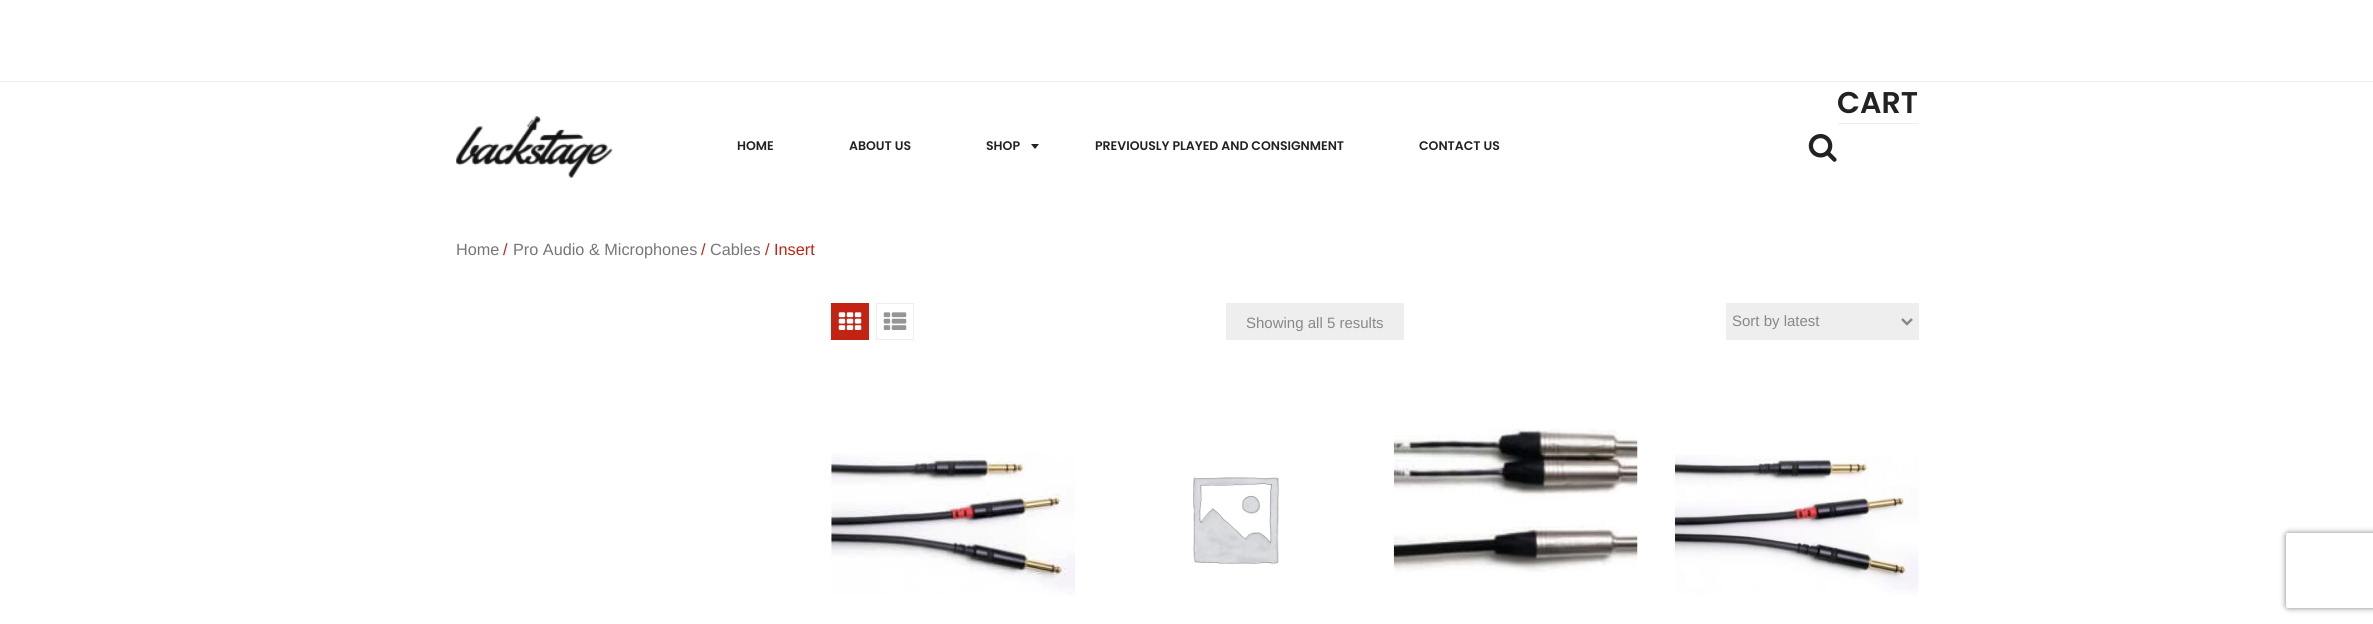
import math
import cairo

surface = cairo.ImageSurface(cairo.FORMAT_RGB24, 2373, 624)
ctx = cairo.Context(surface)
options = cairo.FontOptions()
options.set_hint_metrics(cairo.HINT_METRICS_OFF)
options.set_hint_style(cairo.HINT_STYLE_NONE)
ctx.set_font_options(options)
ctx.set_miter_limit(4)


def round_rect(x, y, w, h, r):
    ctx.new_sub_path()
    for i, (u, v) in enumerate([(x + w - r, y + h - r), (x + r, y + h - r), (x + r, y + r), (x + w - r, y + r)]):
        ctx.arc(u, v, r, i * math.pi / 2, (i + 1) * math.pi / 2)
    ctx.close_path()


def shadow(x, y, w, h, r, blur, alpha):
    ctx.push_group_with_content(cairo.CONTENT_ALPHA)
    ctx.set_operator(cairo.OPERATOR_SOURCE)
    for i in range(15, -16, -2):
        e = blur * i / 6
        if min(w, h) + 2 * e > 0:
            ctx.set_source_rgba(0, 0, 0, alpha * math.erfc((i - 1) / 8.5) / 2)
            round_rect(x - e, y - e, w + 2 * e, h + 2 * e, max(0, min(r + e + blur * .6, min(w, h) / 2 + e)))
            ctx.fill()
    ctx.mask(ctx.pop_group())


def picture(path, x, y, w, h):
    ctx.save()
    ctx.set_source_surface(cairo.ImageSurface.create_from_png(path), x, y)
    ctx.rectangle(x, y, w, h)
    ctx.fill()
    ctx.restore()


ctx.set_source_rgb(1, 1, 1)
ctx.paint()
ctx.set_source_rgb(0.933, 0.933, 0.933)
ctx.rectangle(0, 81, 2373, 1)
ctx.fill()
picture("img1.png", 456, 116, 157, 62)
ctx.rectangle(1838, 123, 81, 1)
ctx.fill()
ctx.select_font_face("Poppins SemiBold")
ctx.set_font_size(30)
ctx.set_source_rgb(0.133, 0.133, 0.133)
ctx.move_to(1837, 113)
ctx.show_text("CART")
ctx.set_font_size(12.5)
ctx.move_to(737, 150)
ctx.show_text("HOME")
ctx.move_to(849, 150)
ctx.show_text("ABOUT US")
ctx.move_to(986, 150)
ctx.show_text("SHOP")
ctx.new_path()
ctx.move_to(1031, 144)
ctx.line_to(1039, 144)
ctx.line_to(1035, 149)
ctx.close_path()
ctx.fill()
ctx.move_to(1095, 150)
ctx.show_text("PREVIOUSLY PLAYED AND CONSIGNMENT")
ctx.move_to(1419, 150)
ctx.show_text("CONTACT US")
picture("img2.png", 1808, 133, 29, 29)
ctx.select_font_face("Liberation Sans")
ctx.set_font_size(16.25)
ctx.set_source_rgb(0.463, 0.463, 0.463)
ctx.move_to(456, 255)
ctx.show_text("Home")
ctx.set_source_rgb(0.761, 0.137, 0.071)
ctx.move_to(503, 255)
ctx.show_text("/")
ctx.set_source_rgb(0.463, 0.463, 0.463)
ctx.move_to(513, 255)
ctx.show_text("Pro Audio & Microphones")
ctx.set_source_rgb(0.761, 0.137, 0.071)
ctx.move_to(701, 255)
ctx.show_text("/")
ctx.set_source_rgb(0.463, 0.463, 0.463)
ctx.move_to(710, 255)
ctx.show_text("Cables")
ctx.set_source_rgb(0.761, 0.137, 0.071)
ctx.move_to(765, 255)
ctx.show_text("/ Insert")
ctx.rectangle(831, 303, 38, 37)
ctx.fill()
picture("img3.png", 838, 312, 24, 18)
ctx.rectangle(876.5, 303.5, 37, 36)
ctx.set_source_rgb(0.933, 0.933, 0.933)
ctx.set_line_width(1)
ctx.stroke()
picture("img4.png", 883, 312, 24, 18)
ctx.rectangle(1226, 303, 178, 37)
ctx.fill()
ctx.set_font_size(15)
ctx.set_source_rgb(0.533, 0.533, 0.533)
ctx.move_to(1246, 328)
ctx.show_text("Showing all 5 results")
ctx.set_source_rgb(0.933, 0.933, 0.933)
ctx.rectangle(1726, 303, 193, 37)
ctx.fill()
ctx.new_path()
ctx.move_to(1902, 319)
ctx.line_to(1907, 324)
ctx.line_to(1912, 319)
ctx.set_source_rgb(0.533, 0.533, 0.533)
ctx.set_line_width(2.5)
ctx.stroke()
ctx.move_to(1732, 326)
ctx.show_text("Sort by latest")
picture("img5.png", 831, 453, 244, 142)
picture("img6.png", 1193, 477, 86, 87)
picture("img7.png", 1393, 428, 245, 144)
picture("img8.png", 1675, 455, 244, 140)
ctx.save()
ctx.set_fill_rule(cairo.FILL_RULE_EVEN_ODD)
ctx.new_path()
ctx.move_to(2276, 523)
ctx.line_to(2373, 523)
ctx.line_to(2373, 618)
ctx.line_to(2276, 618)
ctx.close_path()
ctx.move_to(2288.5, 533)
ctx.line_to(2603.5, 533)
ctx.curve_to(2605, 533, 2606, 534, 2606, 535.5)
ctx.line_to(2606, 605.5)
ctx.curve_to(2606, 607, 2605, 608, 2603.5, 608)
ctx.line_to(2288.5, 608)
ctx.curve_to(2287, 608, 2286, 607, 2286, 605.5)
ctx.line_to(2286, 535.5)
ctx.curve_to(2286, 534, 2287, 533, 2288.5, 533)
ctx.close_path()
ctx.clip()
ctx.set_source_rgb(0.502, 0.502, 0.502)
shadow(2286, 533, 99, 75, 2.5, 3, 1)
ctx.restore()
surface.write_to_png("page.png")
